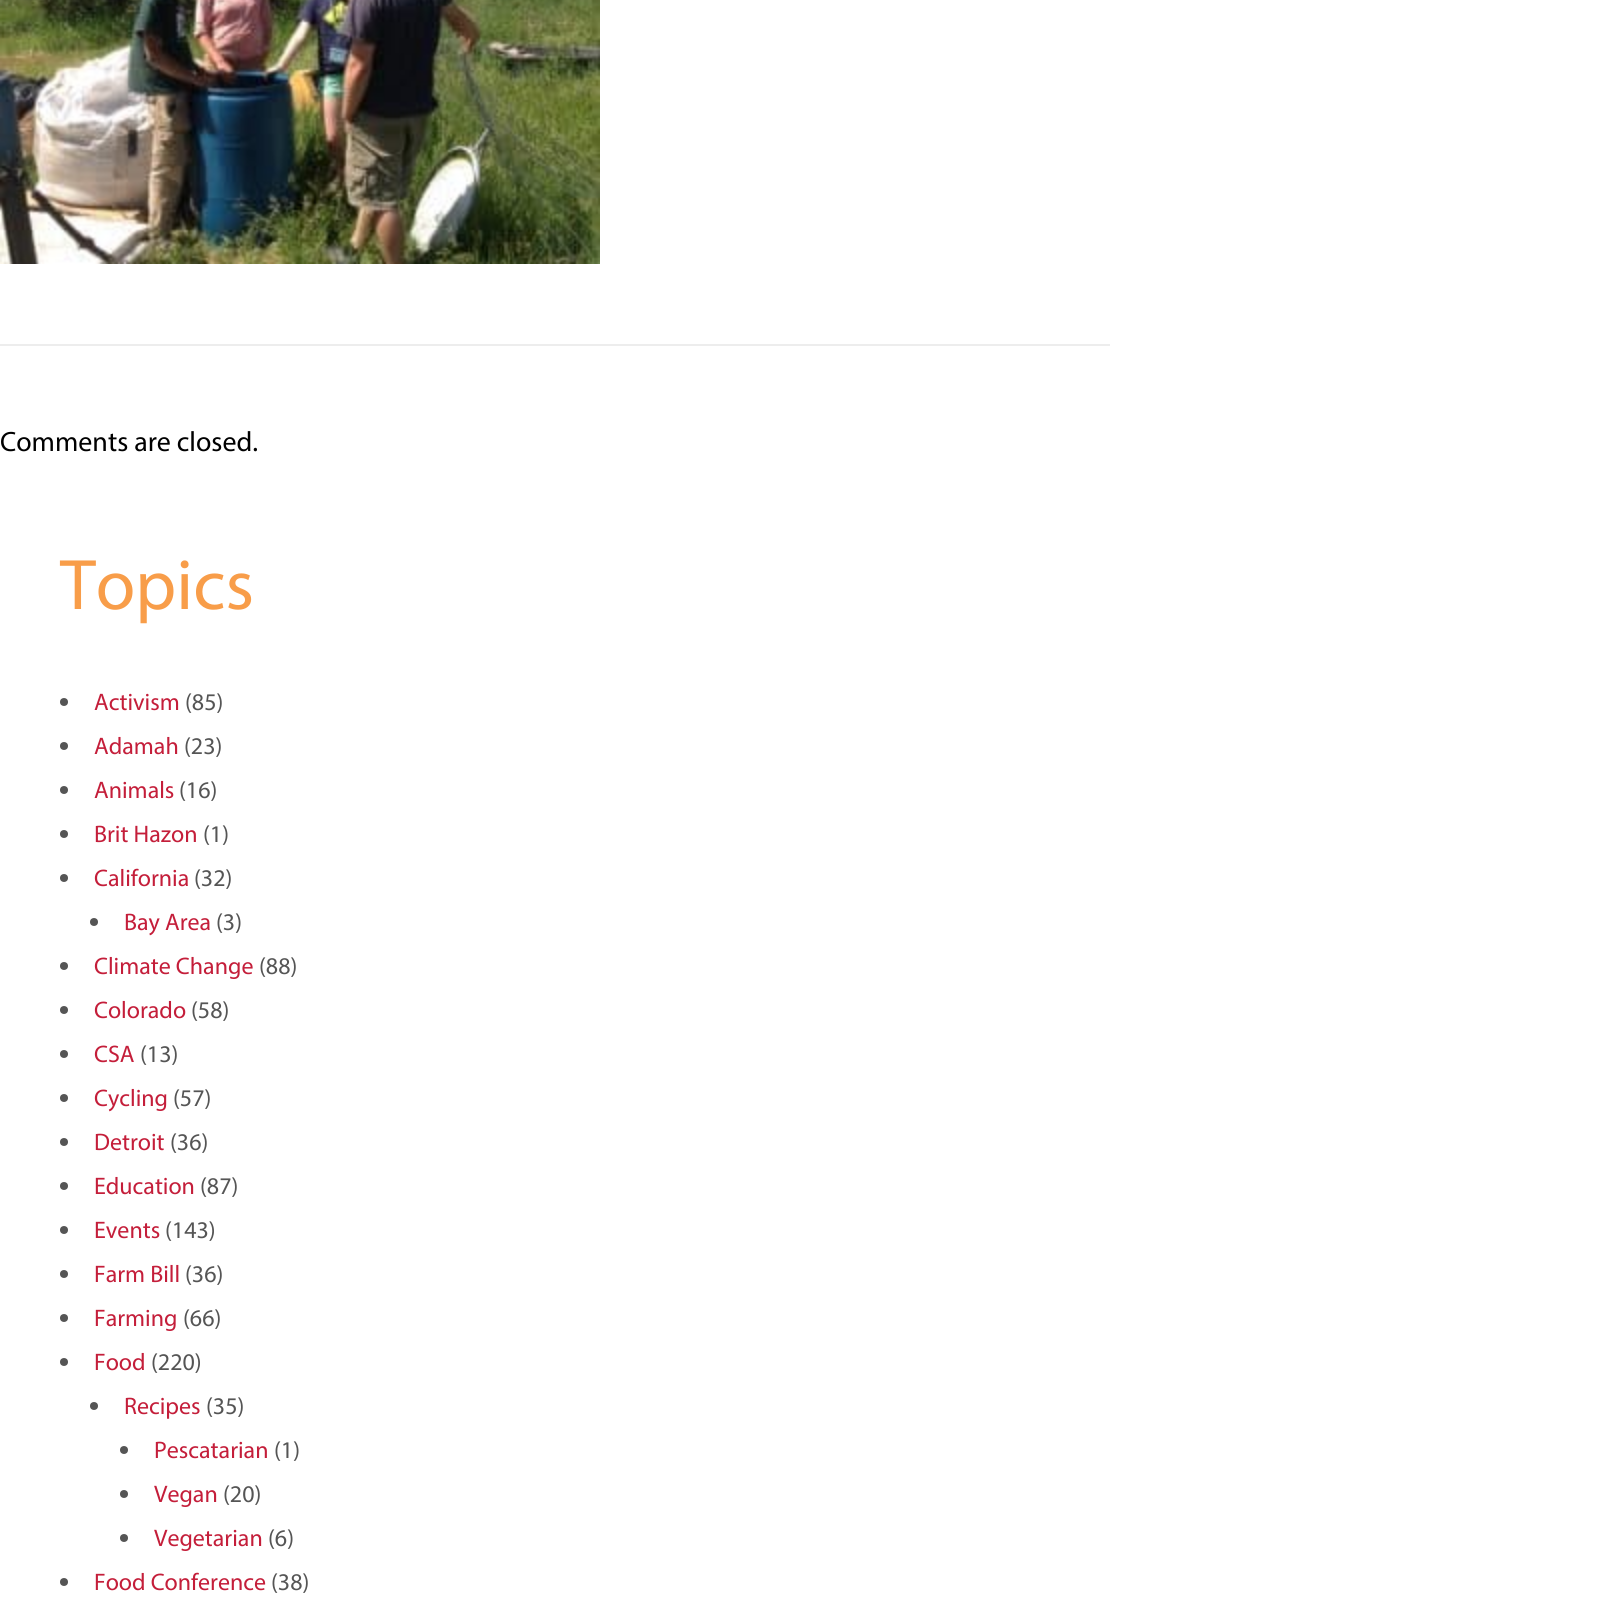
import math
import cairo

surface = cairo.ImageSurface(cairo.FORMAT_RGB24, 1607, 1600)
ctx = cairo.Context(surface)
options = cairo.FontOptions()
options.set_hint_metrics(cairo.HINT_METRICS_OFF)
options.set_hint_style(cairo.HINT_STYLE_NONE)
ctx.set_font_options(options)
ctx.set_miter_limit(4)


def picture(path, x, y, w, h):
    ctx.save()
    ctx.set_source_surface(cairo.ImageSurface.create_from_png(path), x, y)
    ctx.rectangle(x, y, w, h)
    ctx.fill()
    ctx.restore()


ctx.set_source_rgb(1, 1, 1)
ctx.paint()
picture("img1.png", 0, 0, 600, 264)
ctx.set_source_rgb(0.929, 0.929, 0.929)
ctx.rectangle(0, 344, 1110, 2)
ctx.fill()
ctx.select_font_face("Myriad")
ctx.set_font_size(28)
ctx.set_source_rgb(0, 0, 0)
ctx.move_to(0, 451)
ctx.show_text("Comments are closed.")
ctx.set_font_size(72)
ctx.set_source_rgb(0.969, 0.616, 0.286)
ctx.move_to(60, 609)
ctx.show_text("Topics")
ctx.set_source_rgb(0.333, 0.333, 0.333)
ctx.new_path()
ctx.arc(64, 702, 4, 0, 2 * math.pi)
ctx.fill()
ctx.set_font_size(24)
ctx.set_source_rgb(0.769, 0.118, 0.227)
ctx.move_to(94, 710)
ctx.show_text("Activism")
ctx.set_source_rgb(0.333, 0.333, 0.333)
ctx.move_to(185, 710)
ctx.show_text("(85)")
ctx.new_path()
ctx.arc(64, 746, 4, 0, 2 * math.pi)
ctx.fill()
ctx.set_source_rgb(0.769, 0.118, 0.227)
ctx.move_to(94, 754)
ctx.show_text("Adamah")
ctx.set_source_rgb(0.333, 0.333, 0.333)
ctx.move_to(184, 754)
ctx.show_text("(23)")
ctx.new_path()
ctx.arc(64, 790, 4, 0, 2 * math.pi)
ctx.fill()
ctx.set_source_rgb(0.769, 0.118, 0.227)
ctx.move_to(94, 798)
ctx.show_text("Animals")
ctx.set_source_rgb(0.333, 0.333, 0.333)
ctx.move_to(179, 798)
ctx.show_text("(16)")
ctx.new_path()
ctx.arc(64, 834, 4, 0, 2 * math.pi)
ctx.fill()
ctx.set_source_rgb(0.769, 0.118, 0.227)
ctx.move_to(94, 842)
ctx.show_text("Brit Hazon")
ctx.set_source_rgb(0.333, 0.333, 0.333)
ctx.move_to(203, 842)
ctx.show_text("(1)")
ctx.new_path()
ctx.arc(64, 878, 4, 0, 2 * math.pi)
ctx.fill()
ctx.set_source_rgb(0.769, 0.118, 0.227)
ctx.move_to(94, 886)
ctx.show_text("California")
ctx.set_source_rgb(0.333, 0.333, 0.333)
ctx.move_to(194, 886)
ctx.show_text("(32)")
ctx.new_path()
ctx.arc(94, 922, 4, 0, 2 * math.pi)
ctx.fill()
ctx.set_source_rgb(0.769, 0.118, 0.227)
ctx.move_to(124, 930)
ctx.show_text("Bay Area")
ctx.set_source_rgb(0.333, 0.333, 0.333)
ctx.move_to(216, 930)
ctx.show_text("(3)")
ctx.new_path()
ctx.arc(64, 966, 4, 0, 2 * math.pi)
ctx.fill()
ctx.set_source_rgb(0.769, 0.118, 0.227)
ctx.move_to(94, 974)
ctx.show_text("Climate Change")
ctx.set_source_rgb(0.333, 0.333, 0.333)
ctx.move_to(259, 974)
ctx.show_text("(88)")
ctx.new_path()
ctx.arc(64, 1010, 4, 0, 2 * math.pi)
ctx.fill()
ctx.set_source_rgb(0.769, 0.118, 0.227)
ctx.move_to(94, 1018)
ctx.show_text("Colorado")
ctx.set_source_rgb(0.333, 0.333, 0.333)
ctx.move_to(191, 1018)
ctx.show_text("(58)")
ctx.new_path()
ctx.arc(64, 1054, 4, 0, 2 * math.pi)
ctx.fill()
ctx.set_source_rgb(0.769, 0.118, 0.227)
ctx.move_to(94, 1062)
ctx.show_text("CSA")
ctx.set_source_rgb(0.333, 0.333, 0.333)
ctx.move_to(140, 1062)
ctx.show_text("(13)")
ctx.new_path()
ctx.arc(64, 1098, 4, 0, 2 * math.pi)
ctx.fill()
ctx.set_source_rgb(0.769, 0.118, 0.227)
ctx.move_to(94, 1106)
ctx.show_text("Cycling")
ctx.set_source_rgb(0.333, 0.333, 0.333)
ctx.move_to(173, 1106)
ctx.show_text("(57)")
ctx.new_path()
ctx.arc(64, 1142, 4, 0, 2 * math.pi)
ctx.fill()
ctx.set_source_rgb(0.769, 0.118, 0.227)
ctx.move_to(94, 1150)
ctx.show_text("Detroit")
ctx.set_source_rgb(0.333, 0.333, 0.333)
ctx.move_to(170, 1150)
ctx.show_text("(36)")
ctx.new_path()
ctx.arc(64, 1186, 4, 0, 2 * math.pi)
ctx.fill()
ctx.set_source_rgb(0.769, 0.118, 0.227)
ctx.move_to(94, 1194)
ctx.show_text("Education")
ctx.set_source_rgb(0.333, 0.333, 0.333)
ctx.move_to(200, 1194)
ctx.show_text("(87)")
ctx.new_path()
ctx.arc(64, 1230, 4, 0, 2 * math.pi)
ctx.fill()
ctx.set_source_rgb(0.769, 0.118, 0.227)
ctx.move_to(94, 1238)
ctx.show_text("Events")
ctx.set_source_rgb(0.333, 0.333, 0.333)
ctx.move_to(165, 1238)
ctx.show_text("(143)")
ctx.new_path()
ctx.arc(64, 1274, 4, 0, 2 * math.pi)
ctx.fill()
ctx.set_source_rgb(0.769, 0.118, 0.227)
ctx.move_to(94, 1282)
ctx.show_text("Farm Bill")
ctx.set_source_rgb(0.333, 0.333, 0.333)
ctx.move_to(185, 1282)
ctx.show_text("(36)")
ctx.new_path()
ctx.arc(64, 1318, 4, 0, 2 * math.pi)
ctx.fill()
ctx.set_source_rgb(0.769, 0.118, 0.227)
ctx.move_to(94, 1326)
ctx.show_text("Farming")
ctx.set_source_rgb(0.333, 0.333, 0.333)
ctx.move_to(183, 1326)
ctx.show_text("(66)")
ctx.new_path()
ctx.arc(64, 1362, 4, 0, 2 * math.pi)
ctx.fill()
ctx.set_source_rgb(0.769, 0.118, 0.227)
ctx.move_to(94, 1370)
ctx.show_text("Food")
ctx.set_source_rgb(0.333, 0.333, 0.333)
ctx.move_to(151, 1370)
ctx.show_text("(220)")
ctx.new_path()
ctx.arc(94, 1406, 4, 0, 2 * math.pi)
ctx.fill()
ctx.set_source_rgb(0.769, 0.118, 0.227)
ctx.move_to(124, 1414)
ctx.show_text("Recipes")
ctx.set_source_rgb(0.333, 0.333, 0.333)
ctx.move_to(206, 1414)
ctx.show_text("(35)")
ctx.new_path()
ctx.arc(124, 1450, 4, 0, 2 * math.pi)
ctx.fill()
ctx.set_source_rgb(0.769, 0.118, 0.227)
ctx.move_to(154, 1458)
ctx.show_text("Pescatarian")
ctx.set_source_rgb(0.333, 0.333, 0.333)
ctx.move_to(274, 1458)
ctx.show_text("(1)")
ctx.new_path()
ctx.arc(124, 1494, 4, 0, 2 * math.pi)
ctx.fill()
ctx.set_source_rgb(0.769, 0.118, 0.227)
ctx.move_to(154, 1502)
ctx.show_text("Vegan")
ctx.set_source_rgb(0.333, 0.333, 0.333)
ctx.move_to(223, 1502)
ctx.show_text("(20)")
ctx.new_path()
ctx.arc(124, 1538, 4, 0, 2 * math.pi)
ctx.fill()
ctx.set_source_rgb(0.769, 0.118, 0.227)
ctx.move_to(154, 1546)
ctx.show_text("Vegetarian")
ctx.set_source_rgb(0.333, 0.333, 0.333)
ctx.move_to(268, 1546)
ctx.show_text("(6)")
ctx.new_path()
ctx.arc(64, 1582, 4, 0, 2 * math.pi)
ctx.fill()
ctx.set_source_rgb(0.769, 0.118, 0.227)
ctx.move_to(94, 1590)
ctx.show_text("Food Conference")
ctx.set_source_rgb(0.333, 0.333, 0.333)
ctx.move_to(271, 1590)
ctx.show_text("(38)")
surface.write_to_png("page.png")
